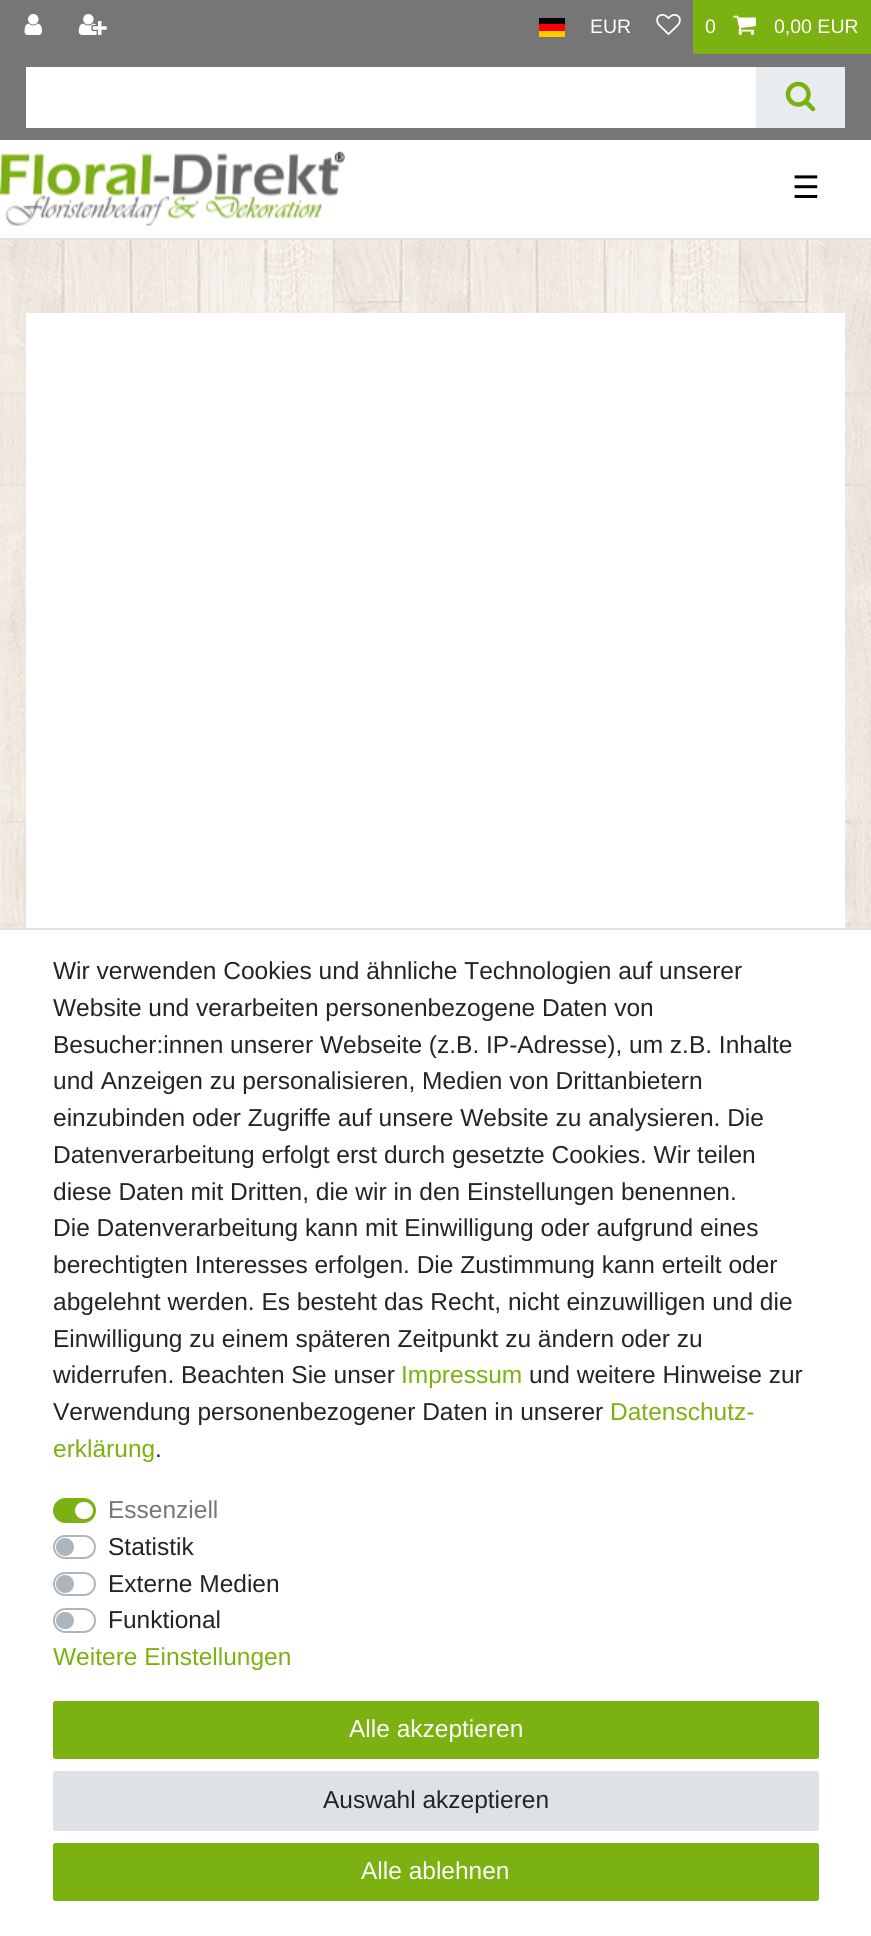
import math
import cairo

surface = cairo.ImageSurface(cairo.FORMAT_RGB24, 871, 1936)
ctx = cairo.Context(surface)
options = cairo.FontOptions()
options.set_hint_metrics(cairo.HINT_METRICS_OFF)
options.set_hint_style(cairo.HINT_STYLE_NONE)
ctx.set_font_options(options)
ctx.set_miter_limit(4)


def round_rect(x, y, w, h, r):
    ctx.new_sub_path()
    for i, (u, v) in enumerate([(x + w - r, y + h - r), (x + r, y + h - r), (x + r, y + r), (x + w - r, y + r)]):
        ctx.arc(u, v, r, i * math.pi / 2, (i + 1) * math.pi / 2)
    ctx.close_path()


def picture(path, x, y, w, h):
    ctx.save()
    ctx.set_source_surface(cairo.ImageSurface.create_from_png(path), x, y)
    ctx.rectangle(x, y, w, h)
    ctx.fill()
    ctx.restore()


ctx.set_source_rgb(1, 1, 1)
ctx.paint()
picture("img1.png", 0, 240, 871, 688)
ctx.set_source_rgb(0.463, 0.463, 0.463)
ctx.rectangle(0, 0, 871, 140)
ctx.fill()
picture("img2.png", 24, 14, 18, 21)
picture("img3.png", 78, 14, 29, 21)
ctx.set_source_rgb(1, 0.8, 0)
ctx.rectangle(539, 31, 26, 6)
ctx.fill()
ctx.set_source_rgb(0, 0, 0)
ctx.rectangle(539, 18, 26, 6)
ctx.fill()
ctx.set_source_rgb(1, 0, 0)
ctx.rectangle(539, 24, 26, 7)
ctx.fill()
ctx.select_font_face("Liberation Sans")
ctx.set_font_size(19.5)
ctx.set_source_rgb(1, 1, 1)
ctx.move_to(590, 33)
ctx.show_text("EUR")
picture("img4.png", 656, 14, 25, 21)
ctx.set_source_rgb(0.482, 0.694, 0.063)
ctx.rectangle(693, 0, 178, 54)
ctx.fill()
ctx.set_source_rgb(1, 1, 1)
ctx.move_to(705, 33)
ctx.show_text("0")
picture("img5.png", 733, 15, 23, 20)
ctx.move_to(774, 33)
ctx.show_text("0,00 EUR")
ctx.rectangle(26, 67, 730, 61)
ctx.fill()
ctx.set_source_rgb(0.914, 0.925, 0.937)
ctx.rectangle(756, 67, 89, 61)
ctx.fill()
picture("img6.png", 785, 81, 31, 31)
ctx.set_source_rgb(0.871, 0.886, 0.902)
ctx.rectangle(0, 238, 871, 2)
ctx.fill()
picture("img7.png", 0, 151, 345, 75)
ctx.select_font_face("DejaVu Sans")
ctx.set_font_size(31)
ctx.set_source_rgb(0, 0, 0)
ctx.move_to(792, 198)
ctx.show_text("☰")
ctx.set_source_rgb(1, 1, 1)
ctx.rectangle(26, 313, 819, 615)
ctx.fill()
ctx.set_source_rgb(0.871, 0.886, 0.902)
ctx.rectangle(0, 928, 871, 2)
ctx.fill()
ctx.select_font_face("Liberation Sans")
ctx.set_font_size(24.5)
ctx.set_source_rgb(0.129, 0.145, 0.161)
ctx.move_to(53, 979)
ctx.show_text("Wir verwenden Cookies und ähnliche Technologien auf unserer")
ctx.move_to(53, 1016)
ctx.show_text("Website und verarbeiten personenbezogene Daten von")
ctx.move_to(53, 1053)
ctx.show_text("Besucher:innen unserer Webseite (z.B. IP-Adresse), um z.B. Inhalte")
ctx.move_to(53, 1089)
ctx.show_text("und Anzeigen zu personalisieren, Medien von Drittanbietern")
ctx.move_to(53, 1126)
ctx.show_text("einzubinden oder Zugriffe auf unsere Website zu analysieren. Die")
ctx.move_to(53, 1163)
ctx.show_text("Datenverarbeitung erfolgt erst durch gesetzte Cookies. Wir teilen")
ctx.move_to(53, 1200)
ctx.show_text("diese Daten mit Dritten, die wir in den Einstellungen benennen.")
ctx.move_to(53, 1236)
ctx.show_text("Die Datenverarbeitung kann mit Einwilligung oder aufgrund eines")
ctx.move_to(53, 1273)
ctx.show_text("berechtigten Interesses erfolgen. Die Zustimmung kann erteilt oder")
ctx.move_to(53, 1310)
ctx.show_text("abgelehnt werden. Es besteht das Recht, nicht einzuwilligen und die")
ctx.move_to(53, 1347)
ctx.show_text("Einwilligung zu einem späteren Zeitpunkt zu ändern oder zu")
ctx.move_to(53, 1383)
ctx.show_text("widerrufen. Beachten Sie unser")
ctx.set_source_rgb(0.482, 0.694, 0.063)
ctx.move_to(401, 1383)
ctx.show_text("Impressum")
ctx.set_source_rgb(0.129, 0.145, 0.161)
ctx.move_to(529, 1383)
ctx.show_text("und weitere Hinweise zur")
ctx.move_to(53, 1420)
ctx.show_text("Verwendung personenbezogener Daten in unserer")
ctx.set_source_rgb(0.482, 0.694, 0.063)
ctx.move_to(610, 1420)
ctx.show_text("Datenschutz-")
ctx.move_to(53, 1457)
ctx.show_text("erklärung")
ctx.set_source_rgb(0.129, 0.145, 0.161)
ctx.move_to(155, 1457)
ctx.show_text(".")
ctx.set_source_rgb(0.482, 0.694, 0.063)
round_rect(54, 1499, 41, 23, 11.5)
ctx.fill_preserve()
ctx.stroke()
ctx.set_source_rgb(0.463, 0.463, 0.463)
ctx.move_to(108, 1518)
ctx.show_text("Essenziell")
ctx.set_source_rgb(1, 1, 1)
round_rect(75, 1502, 18, 17, 8.5)
ctx.fill()
round_rect(54, 1536, 41, 22, 11)
ctx.set_source_rgb(0.678, 0.71, 0.741)
ctx.stroke()
ctx.set_source_rgb(0.129, 0.145, 0.161)
ctx.move_to(108, 1555)
ctx.show_text("Statistik")
ctx.set_source_rgb(0.678, 0.71, 0.741)
ctx.new_path()
ctx.arc(65, 1547, 9, 0, 2 * math.pi)
ctx.fill()
round_rect(54, 1573, 41, 22, 11)
ctx.stroke()
ctx.set_source_rgb(0.129, 0.145, 0.161)
ctx.move_to(108, 1592)
ctx.show_text("Externe Medien")
ctx.set_source_rgb(0.678, 0.71, 0.741)
ctx.new_path()
ctx.arc(65, 1584, 9, 0, 2 * math.pi)
ctx.fill()
round_rect(54, 1609, 41, 23, 11.5)
ctx.stroke()
ctx.set_source_rgb(0.129, 0.145, 0.161)
ctx.move_to(108, 1628)
ctx.show_text("Funktional")
ctx.set_source_rgb(0.678, 0.71, 0.741)
round_rect(56, 1612, 18, 17, 8.5)
ctx.fill()
ctx.set_source_rgb(0.482, 0.694, 0.063)
ctx.move_to(53, 1665)
ctx.show_text("Weitere Einstellungen")
round_rect(54, 1702, 764, 56, 1.5)
ctx.fill_preserve()
ctx.stroke()
ctx.set_source_rgb(1, 1, 1)
ctx.move_to(349, 1737)
ctx.show_text("Alle akzeptieren")
ctx.set_source_rgb(0.871, 0.886, 0.902)
round_rect(54, 1772, 764, 58, 1.5)
ctx.fill_preserve()
ctx.stroke()
ctx.set_source_rgb(0.129, 0.145, 0.161)
ctx.move_to(323, 1808)
ctx.show_text("Auswahl akzeptieren")
ctx.set_source_rgb(0.482, 0.694, 0.063)
round_rect(54, 1844, 764, 56, 1.5)
ctx.fill_preserve()
ctx.stroke()
ctx.set_source_rgb(1, 1, 1)
ctx.move_to(361, 1879)
ctx.show_text("Alle ablehnen")
surface.write_to_png("page.png")
